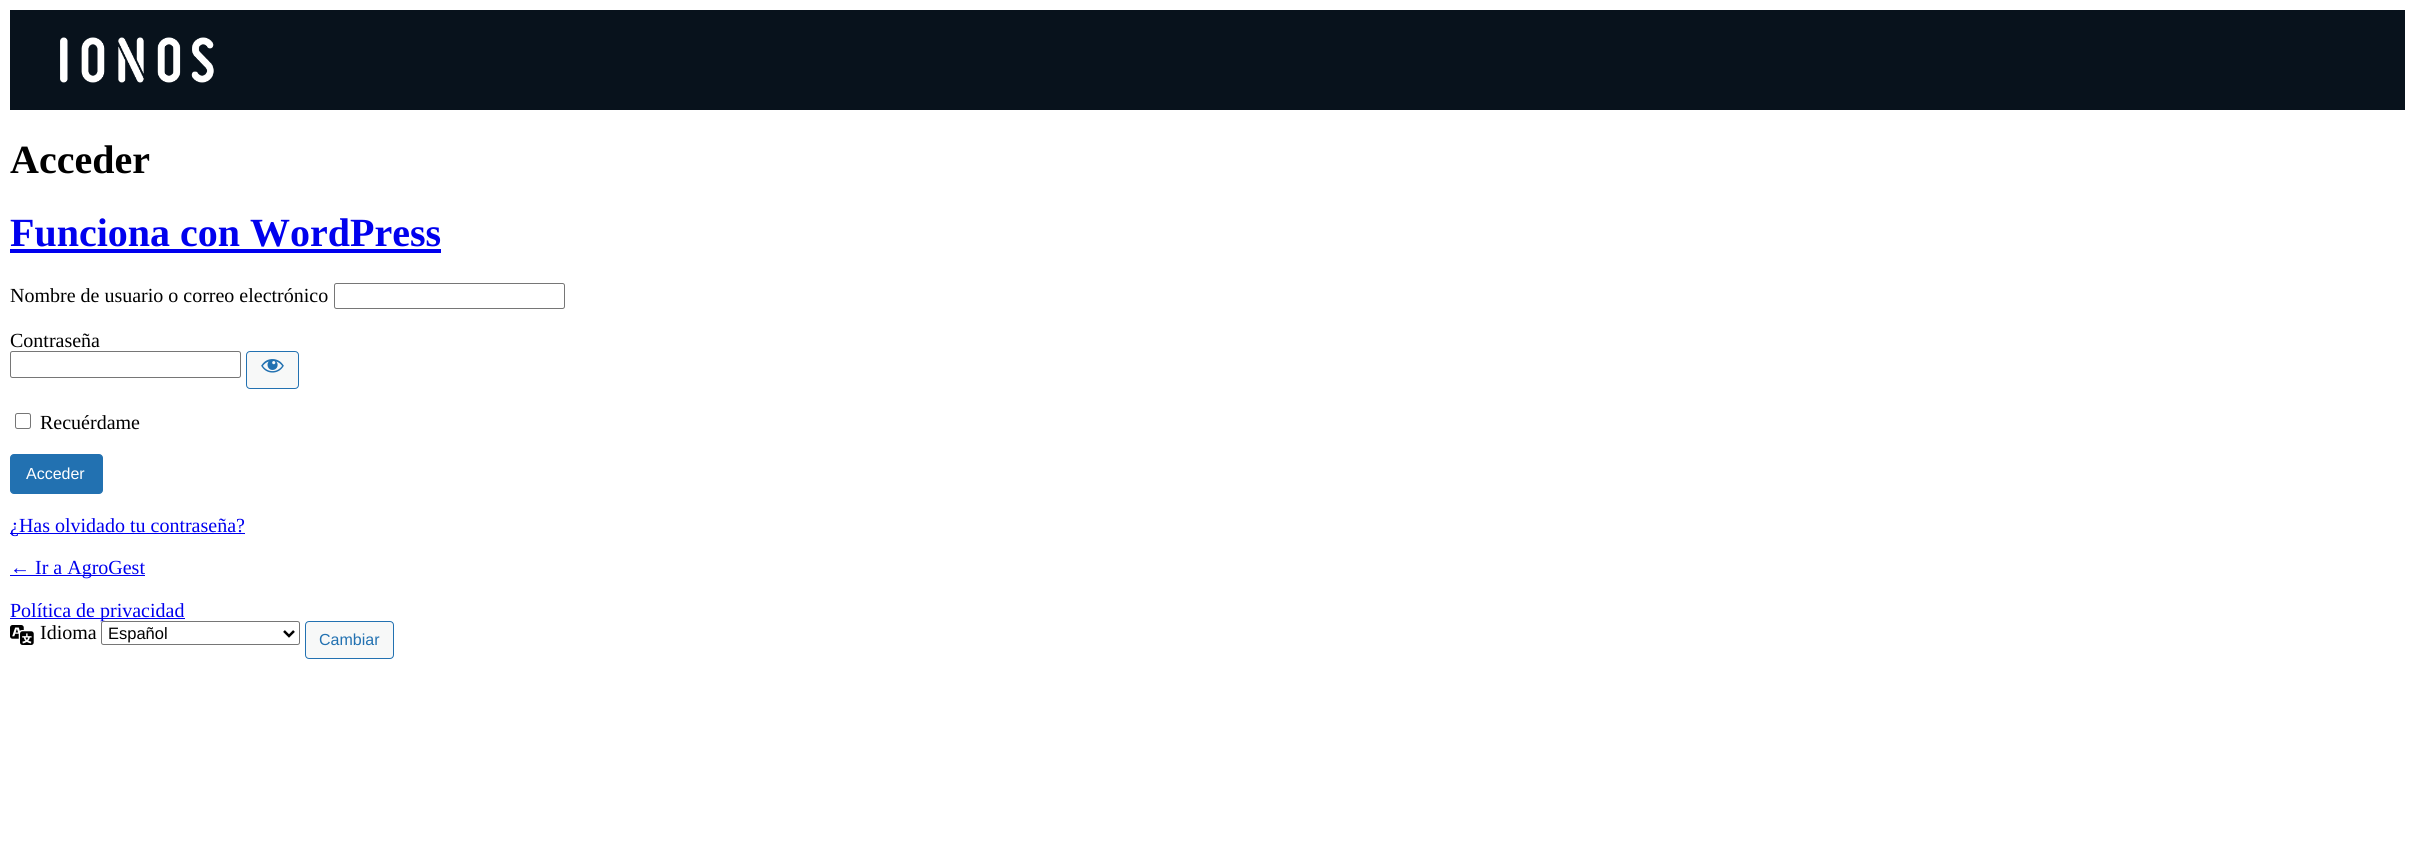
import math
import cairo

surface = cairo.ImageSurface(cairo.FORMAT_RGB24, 2415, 847)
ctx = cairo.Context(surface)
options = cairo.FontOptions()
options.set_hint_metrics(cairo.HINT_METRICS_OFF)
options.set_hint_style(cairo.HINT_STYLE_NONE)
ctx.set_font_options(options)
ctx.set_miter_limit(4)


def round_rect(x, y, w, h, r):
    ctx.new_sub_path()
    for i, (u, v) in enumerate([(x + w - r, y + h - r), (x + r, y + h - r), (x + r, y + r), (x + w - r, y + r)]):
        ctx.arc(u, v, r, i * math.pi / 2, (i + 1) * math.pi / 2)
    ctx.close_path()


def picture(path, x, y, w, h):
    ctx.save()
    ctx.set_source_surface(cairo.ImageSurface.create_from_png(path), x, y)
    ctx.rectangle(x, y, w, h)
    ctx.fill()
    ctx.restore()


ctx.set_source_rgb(1, 1, 1)
ctx.paint()
ctx.set_source_rgb(0.035, 0.071, 0.11)
ctx.rectangle(10, 10, 2395, 100)
ctx.fill()
picture("img1.png", 60, 37, 154, 46)
ctx.select_font_face("Liberation Serif", cairo.FONT_SLANT_NORMAL, cairo.FONT_WEIGHT_BOLD)
ctx.set_font_size(40)
ctx.set_source_rgb(0, 0, 0)
ctx.move_to(10, 173)
ctx.show_text("Acceder")
ctx.set_source_rgb(0, 0, 0.933)
ctx.move_to(10, 246)
ctx.show_text("Funciona con WordPress")
ctx.rectangle(10, 249, 431, 4)
ctx.fill()
ctx.select_font_face("Liberation Serif")
ctx.set_font_size(20)
ctx.set_source_rgb(0, 0, 0)
ctx.move_to(10, 302)
ctx.show_text("Nombre de usuario o correo electrónico")
round_rect(334.5, 283.5, 230, 25, 2)
ctx.set_source_rgb(0.463, 0.463, 0.463)
ctx.set_line_width(1)
ctx.stroke()
ctx.set_source_rgb(0, 0, 0)
ctx.move_to(10, 347)
ctx.show_text("Contraseña")
round_rect(10.5, 351.5, 230, 26, 2)
ctx.set_source_rgb(0.463, 0.463, 0.463)
ctx.stroke()
ctx.set_source_rgb(0.965, 0.969, 0.969)
round_rect(246.5, 351.5, 52, 37, 3.5)
ctx.fill_preserve()
ctx.set_source_rgb(0.133, 0.443, 0.694)
ctx.stroke()
picture("img2.png", 261, 359, 23, 14)
round_rect(15.5, 413.5, 15, 15, 2)
ctx.set_source_rgb(0.463, 0.463, 0.463)
ctx.stroke()
ctx.set_source_rgb(0, 0, 0)
ctx.move_to(40, 429)
ctx.show_text("Recuérdame")
ctx.set_source_rgb(0.133, 0.443, 0.694)
round_rect(10.5, 454.5, 92, 39, 3.5)
ctx.fill_preserve()
ctx.stroke()
ctx.select_font_face("Liberation Sans")
ctx.set_font_size(16)
ctx.set_source_rgb(1, 1, 1)
ctx.move_to(26, 479)
ctx.show_text("Acceder")
ctx.set_source_rgb(0, 0, 0.933)
ctx.rectangle(10, 533, 235, 1)
ctx.fill()
ctx.select_font_face("Liberation Serif")
ctx.set_font_size(20)
ctx.move_to(10, 532)
ctx.show_text("¿Has olvidado tu contraseña?")
ctx.rectangle(10, 575, 135, 1)
ctx.fill()
ctx.move_to(10, 574)
ctx.show_text("← Ir a AgroGest")
ctx.rectangle(10, 618, 175, 1)
ctx.fill()
ctx.move_to(10, 617)
ctx.show_text("Política de privacidad")
picture("img3.png", 10, 625, 24, 20)
ctx.set_source_rgb(0, 0, 0)
ctx.move_to(40, 639)
ctx.show_text("Idioma")
ctx.set_source_rgb(1, 1, 1)
round_rect(101.5, 621.5, 198, 23, 2)
ctx.fill_preserve()
ctx.set_source_rgb(0.463, 0.463, 0.463)
ctx.stroke()
ctx.new_path()
ctx.move_to(284, 631)
ctx.line_to(289, 636)
ctx.line_to(294, 631)
ctx.set_source_rgb(0, 0, 0)
ctx.set_line_width(2.5)
ctx.stroke()
ctx.select_font_face("Liberation Sans")
ctx.set_font_size(16.5)
ctx.move_to(108, 639)
ctx.show_text("Español")
ctx.set_source_rgb(0.965, 0.969, 0.969)
round_rect(305.5, 621.5, 88, 37, 3.5)
ctx.fill_preserve()
ctx.set_source_rgb(0.133, 0.443, 0.694)
ctx.set_line_width(1)
ctx.stroke()
ctx.set_font_size(16)
ctx.move_to(319, 645)
ctx.show_text("Cambiar")
surface.write_to_png("page.png")
